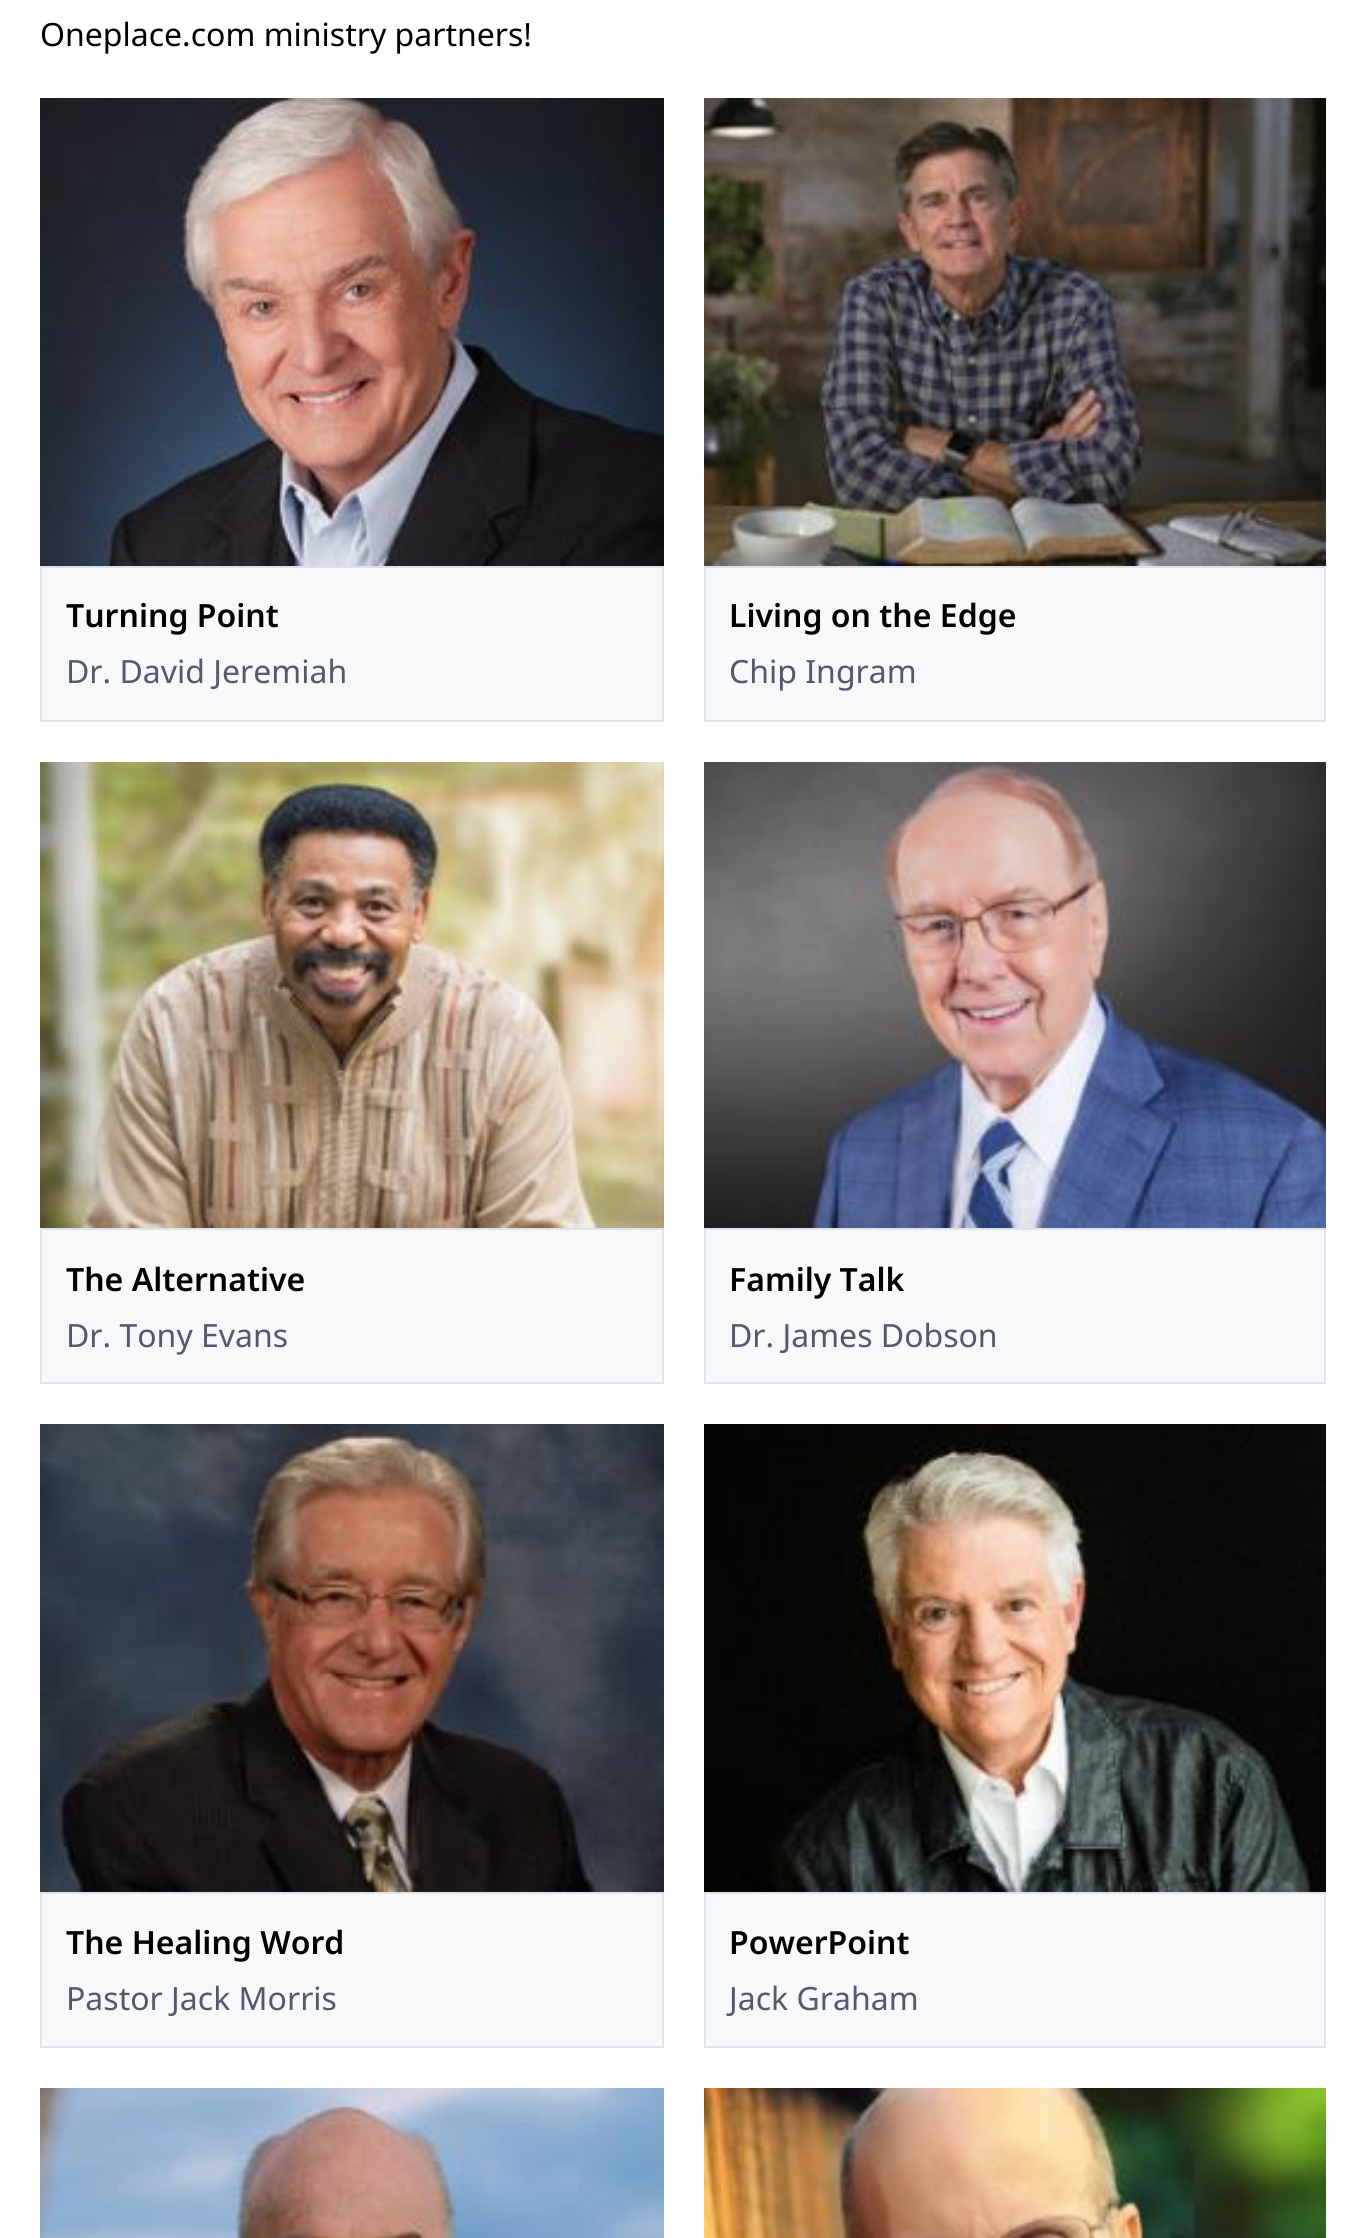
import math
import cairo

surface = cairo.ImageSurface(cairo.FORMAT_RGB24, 1365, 2238)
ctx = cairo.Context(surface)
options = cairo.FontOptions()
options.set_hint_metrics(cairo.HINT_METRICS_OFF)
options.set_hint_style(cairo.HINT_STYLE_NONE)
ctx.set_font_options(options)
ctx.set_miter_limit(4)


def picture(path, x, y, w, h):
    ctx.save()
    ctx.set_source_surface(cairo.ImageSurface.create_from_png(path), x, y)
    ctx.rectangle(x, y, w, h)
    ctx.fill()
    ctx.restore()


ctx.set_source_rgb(1, 1, 1)
ctx.paint()
ctx.select_font_face("Noto Sans")
ctx.set_font_size(32)
ctx.set_source_rgb(0, 0, 0)
ctx.move_to(40, 46)
ctx.show_text("Oneplace.com ministry partners!")
picture("img1.png", 40, 98, 624, 468)
ctx.set_source_rgb(0.961, 0.969, 0.98)
ctx.rectangle(41, 567, 622, 154)
ctx.fill_preserve()
ctx.set_source_rgb(0.867, 0.89, 0.91)
ctx.stroke()
ctx.select_font_face("Noto Sans SemiBold")
ctx.set_source_rgb(0, 0, 0)
ctx.move_to(66, 627)
ctx.show_text("Turning Point")
ctx.select_font_face("Noto Sans")
ctx.set_source_rgb(0.322, 0.345, 0.439)
ctx.move_to(66, 683)
ctx.show_text("Dr. David Jeremiah")
picture("img2.png", 704, 98, 622, 468)
ctx.set_source_rgb(0.961, 0.969, 0.98)
ctx.rectangle(705, 567, 620, 154)
ctx.fill_preserve()
ctx.set_source_rgb(0.867, 0.89, 0.91)
ctx.stroke()
ctx.select_font_face("Noto Sans SemiBold")
ctx.set_source_rgb(0, 0, 0)
ctx.move_to(729, 627)
ctx.show_text("Living on the Edge")
ctx.select_font_face("Noto Sans")
ctx.set_source_rgb(0.322, 0.345, 0.439)
ctx.move_to(729, 683)
ctx.show_text("Chip Ingram")
picture("img3.png", 40, 762, 624, 466)
ctx.set_source_rgb(0.961, 0.969, 0.98)
ctx.rectangle(41, 1229, 622, 154)
ctx.fill_preserve()
ctx.set_source_rgb(0.867, 0.89, 0.91)
ctx.stroke()
ctx.select_font_face("Noto Sans SemiBold")
ctx.set_source_rgb(0, 0, 0)
ctx.move_to(66, 1291)
ctx.show_text("The Alternative")
ctx.select_font_face("Noto Sans")
ctx.set_source_rgb(0.322, 0.345, 0.439)
ctx.move_to(66, 1347)
ctx.show_text("Dr. Tony Evans")
picture("img4.png", 704, 762, 622, 466)
ctx.set_source_rgb(0.961, 0.969, 0.98)
ctx.rectangle(705, 1229, 620, 154)
ctx.fill_preserve()
ctx.set_source_rgb(0.867, 0.89, 0.91)
ctx.stroke()
ctx.select_font_face("Noto Sans SemiBold")
ctx.set_source_rgb(0, 0, 0)
ctx.move_to(729, 1291)
ctx.show_text("Family Talk")
ctx.select_font_face("Noto Sans")
ctx.set_source_rgb(0.322, 0.345, 0.439)
ctx.move_to(729, 1347)
ctx.show_text("Dr. James Dobson")
picture("img5.png", 40, 1424, 624, 468)
ctx.set_source_rgb(0.961, 0.969, 0.98)
ctx.rectangle(41, 1893, 622, 154)
ctx.fill_preserve()
ctx.set_source_rgb(0.867, 0.89, 0.91)
ctx.stroke()
ctx.select_font_face("Noto Sans SemiBold")
ctx.set_source_rgb(0, 0, 0)
ctx.move_to(66, 1954)
ctx.show_text("The Healing Word")
ctx.select_font_face("Noto Sans")
ctx.set_source_rgb(0.322, 0.345, 0.439)
ctx.move_to(66, 2010)
ctx.show_text("Pastor Jack Morris")
picture("img6.png", 704, 1424, 622, 468)
ctx.set_source_rgb(0.961, 0.969, 0.98)
ctx.rectangle(705, 1893, 620, 154)
ctx.fill_preserve()
ctx.set_source_rgb(0.867, 0.89, 0.91)
ctx.stroke()
ctx.select_font_face("Noto Sans SemiBold")
ctx.set_source_rgb(0, 0, 0)
ctx.move_to(729, 1954)
ctx.show_text("PowerPoint")
ctx.select_font_face("Noto Sans")
ctx.set_source_rgb(0.322, 0.345, 0.439)
ctx.move_to(729, 2010)
ctx.show_text("Jack Graham")
picture("img7.png", 40, 2088, 624, 150)
picture("img8.png", 704, 2088, 622, 150)
surface.write_to_png("page.png")
